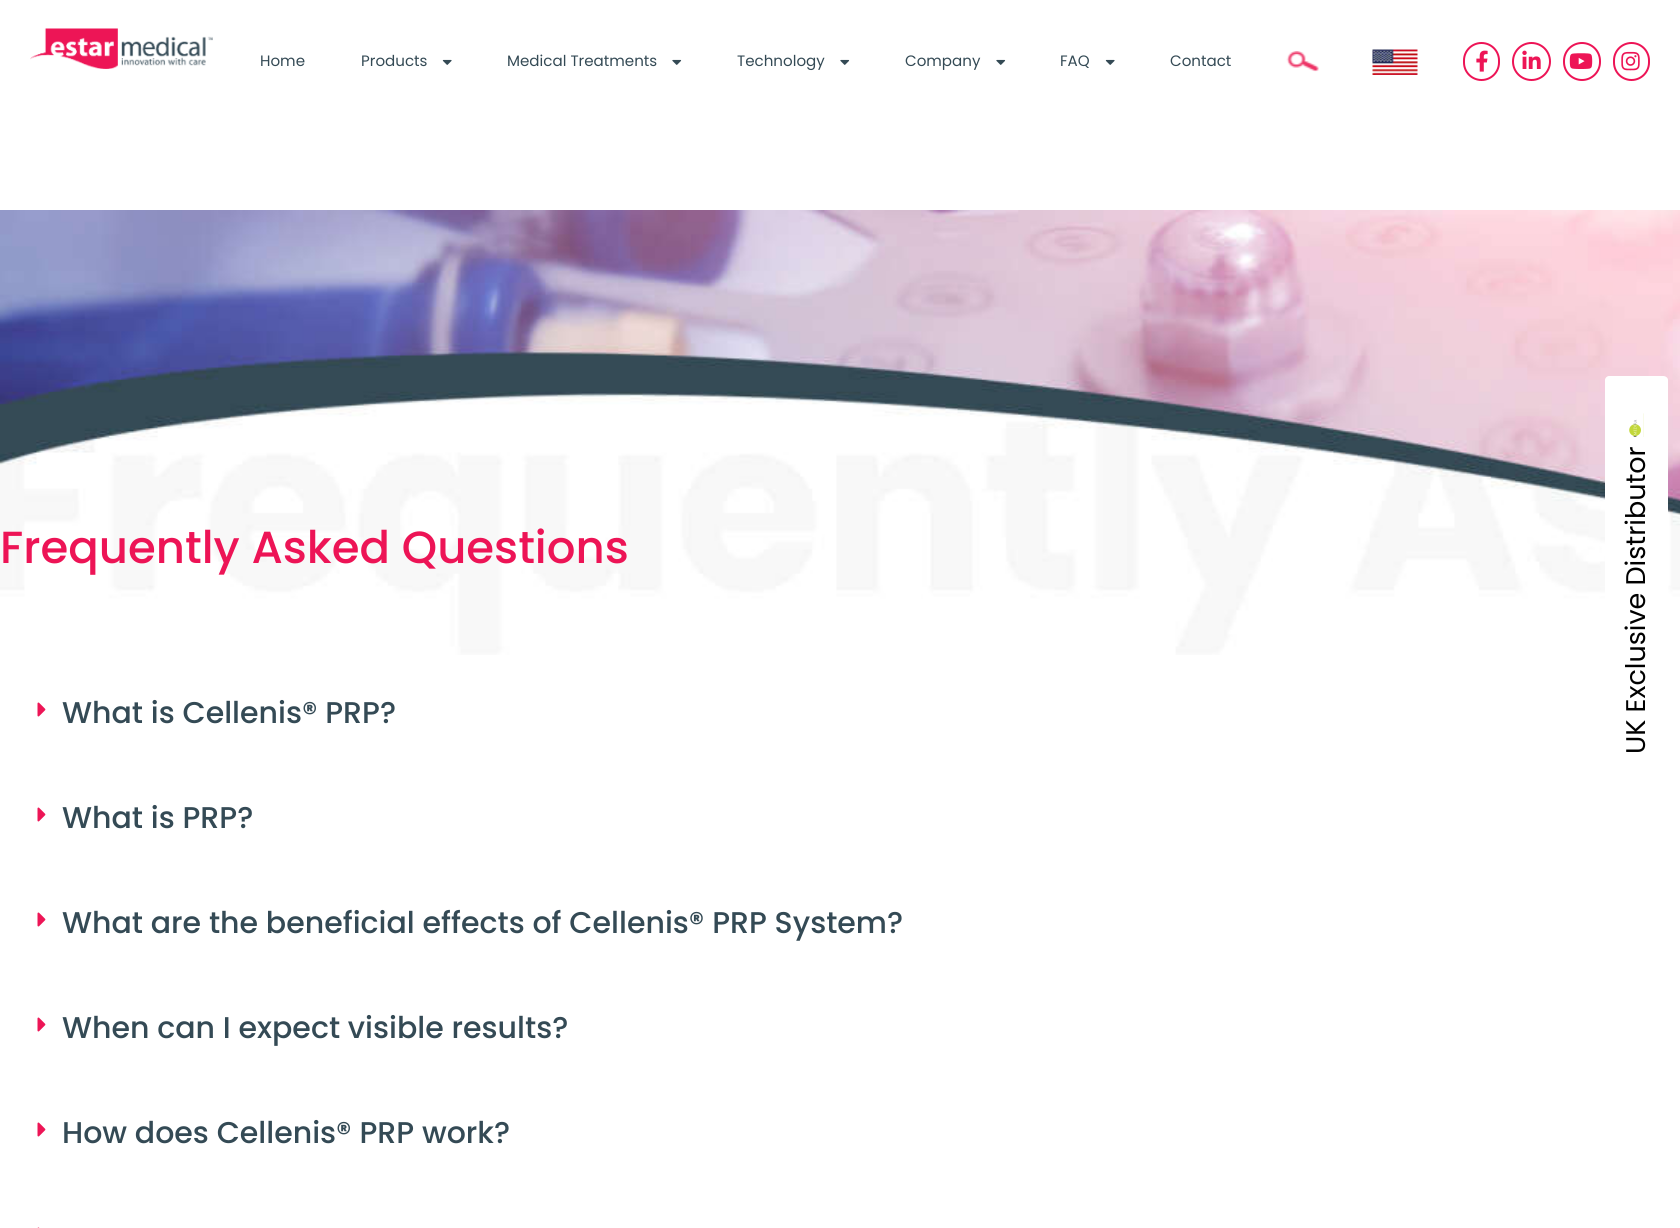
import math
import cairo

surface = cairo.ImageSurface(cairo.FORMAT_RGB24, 1680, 1228)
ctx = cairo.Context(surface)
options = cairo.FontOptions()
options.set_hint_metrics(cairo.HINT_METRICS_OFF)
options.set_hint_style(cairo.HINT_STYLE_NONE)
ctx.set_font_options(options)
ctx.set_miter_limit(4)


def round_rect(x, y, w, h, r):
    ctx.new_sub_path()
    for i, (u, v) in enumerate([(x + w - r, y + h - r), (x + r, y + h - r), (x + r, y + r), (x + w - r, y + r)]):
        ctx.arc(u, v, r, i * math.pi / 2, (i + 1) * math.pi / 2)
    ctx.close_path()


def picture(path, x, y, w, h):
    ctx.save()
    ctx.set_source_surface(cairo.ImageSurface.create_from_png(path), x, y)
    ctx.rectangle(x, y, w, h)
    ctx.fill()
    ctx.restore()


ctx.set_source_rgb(1, 1, 1)
ctx.paint()
picture("img1.png", 30, 28, 183, 41)
ctx.select_font_face("Poppins")
ctx.set_font_size(15.1)
ctx.set_source_rgb(0.204, 0.29, 0.333)
ctx.move_to(260, 66)
ctx.show_text("Home")
ctx.move_to(361, 66)
ctx.show_text("Products")
picture("img2.png", 442, 59, 10, 6)
ctx.move_to(507, 66)
ctx.show_text("Medical Treatments")
picture("img3.png", 672, 59, 10, 6)
ctx.move_to(737, 66)
ctx.show_text("Technology")
picture("img3.png", 840, 59, 10, 6)
ctx.move_to(905, 66)
ctx.show_text("Company")
picture("img3.png", 996, 59, 10, 6)
ctx.move_to(1060, 66)
ctx.show_text("FAQ")
picture("img2.png", 1105, 59, 10, 6)
ctx.move_to(1170, 66)
ctx.show_text("Contact")
picture("img4.png", 1286, 51, 33, 21)
picture("img5.png", 1372, 49, 46, 26)
round_rect(1464, 43, 35, 37, 17.5)
ctx.set_source_rgb(0.929, 0.082, 0.337)
ctx.stroke()
picture("img6.png", 1476, 50, 12, 22)
ctx.arc(1531.5, 61.5, 18.5, 0, 2 * math.pi)
ctx.stroke()
picture("img7.png", 1522, 50, 19, 19)
round_rect(1564, 43, 36, 37, 18)
ctx.stroke()
picture("img8.png", 1569, 53, 24, 16)
round_rect(1614, 43, 35, 37, 17.5)
ctx.stroke()
picture("img9.png", 1621, 51, 19, 20)
picture("img10.png", 0, 210, 1680, 445)
ctx.select_font_face("Poppins Medium")
ctx.set_font_size(45)
ctx.move_to(0, 563)
ctx.show_text("Frequently Asked Questions")
picture("img11.png", 37, 702, 9, 15)
ctx.set_font_size(30)
ctx.set_source_rgb(0.204, 0.29, 0.333)
ctx.move_to(62, 723)
ctx.show_text("What is Cellenis® PRP?")
picture("img11.png", 37, 807, 9, 15)
ctx.move_to(62, 828)
ctx.show_text("What is PRP?")
picture("img11.png", 37, 912, 9, 15)
ctx.move_to(62, 933)
ctx.show_text("What are the beneficial effects of Cellenis® PRP System?")
picture("img11.png", 37, 1017, 9, 15)
ctx.move_to(62, 1038)
ctx.show_text("When can I expect visible results?")
picture("img11.png", 37, 1122, 9, 15)
ctx.move_to(62, 1143)
ctx.show_text("How does Cellenis® PRP work?")
picture("img12.png", 37, 1227, 3, 1)
ctx.set_source_rgb(1, 1, 1)
ctx.new_path()
ctx.move_to(1605, 785)
ctx.line_to(1605, 380)
ctx.curve_to(1605, 378, 1607, 376, 1609, 376)
ctx.line_to(1663, 376)
ctx.curve_to(1666, 376, 1668, 378, 1668, 380)
ctx.line_to(1668, 785)
ctx.curve_to(1668, 788, 1666, 790, 1663, 790)
ctx.line_to(1609, 790)
ctx.curve_to(1607, 790, 1605, 788, 1605, 785)
ctx.close_path()
ctx.fill()
picture("img13.png", 1629, 413, 15, 24)
ctx.select_font_face("Poppins")
ctx.set_font_size(27)
ctx.set_source_rgb(0, 0, 0)
ctx.save()
ctx.translate(1645, 754)
ctx.rotate(-90 * math.pi / 180)
ctx.move_to(0, 0)
ctx.show_text("UK Exclusive Distributor")
ctx.restore()
surface.write_to_png("page.png")
